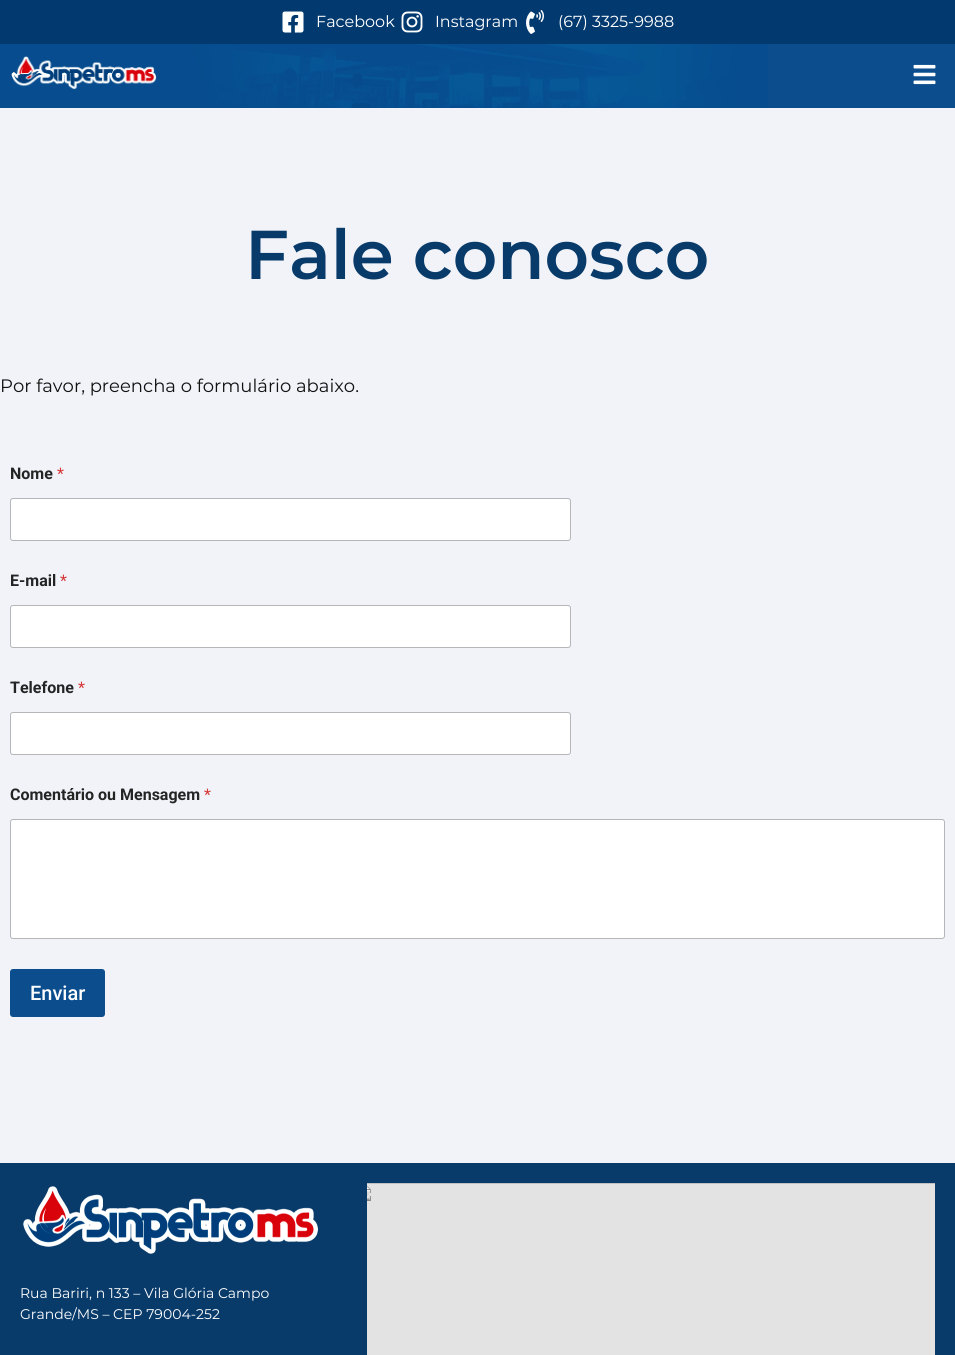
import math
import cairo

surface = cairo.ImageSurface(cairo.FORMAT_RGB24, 955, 1355)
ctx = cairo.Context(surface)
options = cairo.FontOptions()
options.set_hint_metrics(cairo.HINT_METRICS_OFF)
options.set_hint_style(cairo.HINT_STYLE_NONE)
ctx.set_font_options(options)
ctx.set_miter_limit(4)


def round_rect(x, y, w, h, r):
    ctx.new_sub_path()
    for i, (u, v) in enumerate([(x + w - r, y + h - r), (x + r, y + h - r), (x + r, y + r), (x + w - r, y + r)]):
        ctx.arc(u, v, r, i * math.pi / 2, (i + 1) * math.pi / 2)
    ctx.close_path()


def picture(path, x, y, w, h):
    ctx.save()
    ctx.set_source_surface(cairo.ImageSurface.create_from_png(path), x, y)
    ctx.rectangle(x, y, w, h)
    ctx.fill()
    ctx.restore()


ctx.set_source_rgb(0.945, 0.953, 0.969)
ctx.paint()
ctx.set_source_rgb(0.008, 0.224, 0.435)
ctx.rectangle(0, 0, 955, 44)
ctx.fill()
picture("img1.png", 282, 11, 22, 22)
ctx.select_font_face("Montserrat")
ctx.set_font_size(16)
ctx.set_source_rgb(1, 1, 1)
ctx.move_to(316, 27)
ctx.show_text("Facebook")
picture("img2.png", 401, 11, 22, 22)
ctx.move_to(435, 27)
ctx.show_text("Instagram")
picture("img3.png", 526, 10, 18, 24)
ctx.move_to(558, 27)
ctx.show_text("(67) 3325-9988")
ctx.set_source_rgb(0.047, 0.302, 0.553)
ctx.rectangle(768, 44, 187, 64)
ctx.fill()
picture("img4.png", 0, 44, 768, 64)
picture("img5.png", 11, 56, 146, 34)
picture("img6.png", 913, 64, 23, 21)
ctx.select_font_face("Montserrat SemiBold")
ctx.set_font_size(69)
ctx.set_source_rgb(0.035, 0.227, 0.416)
ctx.move_to(245, 279)
ctx.show_text("Fale conosco")
ctx.select_font_face("Montserrat")
ctx.set_font_size(18)
ctx.set_source_rgb(0.067, 0.067, 0.067)
ctx.move_to(0, 392)
ctx.show_text("Por favor, preencha o formulário abaixo.")
ctx.select_font_face("Roboto", cairo.FONT_SLANT_NORMAL, cairo.FONT_WEIGHT_BOLD)
ctx.set_font_size(16)
ctx.set_source_rgb(0.141, 0.141, 0.145)
ctx.move_to(10, 479)
ctx.show_text("Nome")
ctx.select_font_face("Roboto")
ctx.set_source_rgb(0.839, 0.212, 0.216)
ctx.move_to(57, 479)
ctx.show_text("*")
ctx.set_source_rgb(1, 1, 1)
round_rect(11, 499, 559, 41, 2)
ctx.fill()
round_rect(10.5, 498.5, 560, 42, 2.5)
ctx.set_source_rgba(0, 0, 0, 0.25)
ctx.set_line_width(1)
ctx.stroke()
ctx.select_font_face("Roboto", cairo.FONT_SLANT_NORMAL, cairo.FONT_WEIGHT_BOLD)
ctx.set_source_rgb(0.141, 0.141, 0.145)
ctx.move_to(10, 586)
ctx.show_text("E-mail")
ctx.select_font_face("Roboto")
ctx.set_source_rgb(0.839, 0.212, 0.216)
ctx.move_to(60, 586)
ctx.show_text("*")
ctx.set_source_rgb(1, 1, 1)
round_rect(11, 606, 559, 41, 2)
ctx.fill()
round_rect(10.5, 605.5, 560, 42, 2.5)
ctx.set_source_rgba(0, 0, 0, 0.25)
ctx.stroke()
ctx.select_font_face("Roboto", cairo.FONT_SLANT_NORMAL, cairo.FONT_WEIGHT_BOLD)
ctx.set_source_rgb(0.141, 0.141, 0.145)
ctx.move_to(10, 693)
ctx.show_text("Telefone")
ctx.select_font_face("Roboto")
ctx.set_source_rgb(0.839, 0.212, 0.216)
ctx.move_to(78, 693)
ctx.show_text("*")
ctx.set_source_rgb(1, 1, 1)
round_rect(11, 713, 559, 41, 2)
ctx.fill()
round_rect(10.5, 712.5, 560, 42, 2.5)
ctx.set_source_rgba(0, 0, 0, 0.25)
ctx.stroke()
ctx.select_font_face("Roboto", cairo.FONT_SLANT_NORMAL, cairo.FONT_WEIGHT_BOLD)
ctx.set_source_rgb(0.141, 0.141, 0.145)
ctx.move_to(10, 800)
ctx.show_text("Comentário ou Mensagem")
ctx.select_font_face("Roboto")
ctx.set_source_rgb(0.839, 0.212, 0.216)
ctx.move_to(204, 800)
ctx.show_text("*")
ctx.set_source_rgb(1, 1, 1)
round_rect(11, 820, 933, 118, 2)
ctx.fill()
round_rect(10.5, 819.5, 934, 119, 2.5)
ctx.set_source_rgba(0, 0, 0, 0.25)
ctx.stroke()
ctx.set_source_rgb(0.047, 0.302, 0.553)
round_rect(10, 969, 95, 48, 3)
ctx.fill()
ctx.select_font_face("Roboto Medium")
ctx.set_font_size(20)
ctx.set_source_rgb(1, 1, 1)
ctx.move_to(30, 1000)
ctx.show_text("Enviar")
ctx.set_source_rgb(0.035, 0.227, 0.416)
ctx.rectangle(0, 1163, 955, 192)
ctx.fill()
picture("img7.png", 23, 1186, 295, 68)
ctx.select_font_face("Montserrat")
ctx.set_font_size(14)
ctx.set_source_rgb(1, 1, 1)
ctx.move_to(20, 1298)
ctx.show_text("Rua Bariri, n 133 – Vila Glória Campo")
ctx.move_to(20, 1319)
ctx.show_text("Grande/MS – CEP 79004-252")
picture("img8.png", 367, 1183, 568, 172)
surface.write_to_png("page.png")
